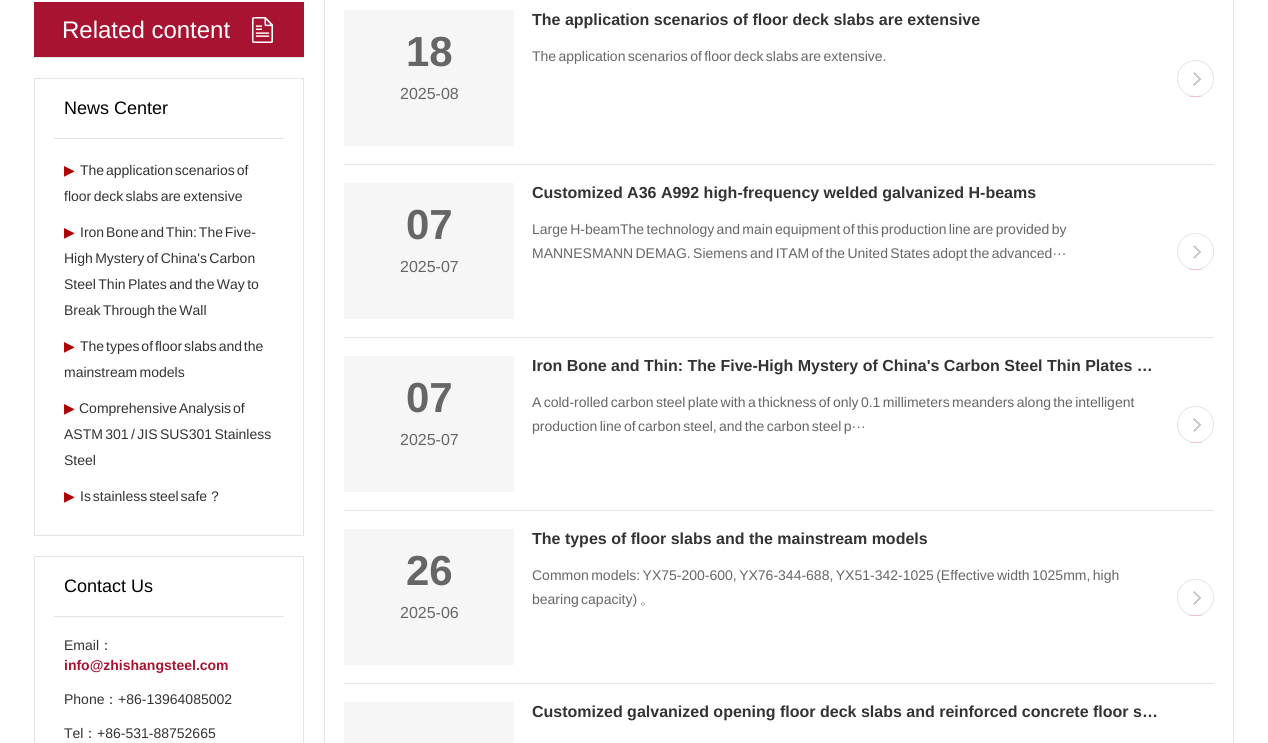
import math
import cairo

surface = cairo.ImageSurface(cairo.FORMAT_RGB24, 1268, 743)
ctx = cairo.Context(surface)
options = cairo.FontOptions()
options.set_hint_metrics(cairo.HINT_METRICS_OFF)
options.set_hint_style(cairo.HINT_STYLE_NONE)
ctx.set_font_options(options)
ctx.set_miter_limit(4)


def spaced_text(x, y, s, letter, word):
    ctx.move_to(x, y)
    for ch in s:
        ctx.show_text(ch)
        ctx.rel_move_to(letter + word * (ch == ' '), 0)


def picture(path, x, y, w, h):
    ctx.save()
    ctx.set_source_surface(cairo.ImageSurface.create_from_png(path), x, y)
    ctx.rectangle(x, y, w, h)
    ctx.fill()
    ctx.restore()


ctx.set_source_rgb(1, 1, 1)
ctx.paint()
ctx.set_source_rgb(0.663, 0.078, 0.196)
ctx.rectangle(34, 2, 270, 55)
ctx.fill()
picture("img1.png", 252, 17, 21, 26)
ctx.select_font_face("Liberation Sans")
ctx.set_font_size(24)
ctx.set_source_rgb(1, 1, 1)
ctx.move_to(62, 38)
ctx.show_text("Related content")
ctx.set_source_rgb(0.894, 0.894, 0.894)
ctx.rectangle(34, 57, 270, 1)
ctx.fill()
ctx.rectangle(34.5, 78.5, 269, 457)
ctx.set_line_width(1)
ctx.stroke()
ctx.rectangle(54, 138, 230, 1)
ctx.fill()
ctx.set_font_size(18)
ctx.set_source_rgb(0, 0, 0)
ctx.move_to(64, 114)
ctx.show_text("News Center")
ctx.select_font_face("DejaVu Sans")
ctx.set_font_size(14)
ctx.set_source_rgb(0.678, 0, 0.016)
ctx.move_to(64, 175)
ctx.show_text("▶")
ctx.select_font_face("Liberation Sans")
ctx.set_source_rgb(0.2, 0.2, 0.2)
spaced_text(80, 175, "The application scenarios of", 0, -2)
spaced_text(64, 201, "floor deck slabs are extensive", 0, -1.5)
ctx.select_font_face("DejaVu Sans")
ctx.set_source_rgb(0.678, 0, 0.016)
ctx.move_to(64, 237)
ctx.show_text("▶")
ctx.select_font_face("Liberation Sans")
ctx.set_source_rgb(0.2, 0.2, 0.2)
spaced_text(80, 237, "Iron Bone and Thin: The Five-", 0, -2)
spaced_text(64, 263, "High Mystery of China's Carbon", 0, -1.5)
spaced_text(64, 289, "Steel Thin Plates and the Way to", 0, -1.5)
spaced_text(64, 315, "Break Through the Wall", 0, -1.5)
ctx.select_font_face("DejaVu Sans")
ctx.set_source_rgb(0.678, 0, 0.016)
ctx.move_to(64, 351)
ctx.show_text("▶")
ctx.select_font_face("Liberation Sans")
ctx.set_source_rgb(0.2, 0.2, 0.2)
spaced_text(80, 351, "The types of floor slabs and the", 0, -2)
spaced_text(64, 377, "mainstream models", 0, -1.5)
ctx.select_font_face("DejaVu Sans")
ctx.set_source_rgb(0.678, 0, 0.016)
ctx.move_to(64, 413)
ctx.show_text("▶")
ctx.select_font_face("Liberation Sans")
ctx.set_source_rgb(0.2, 0.2, 0.2)
spaced_text(79, 413, "Comprehensive Analysis of", 0, -2)
spaced_text(64, 439, "ASTM 301 / JIS SUS301 Stainless", 0, -1.5)
ctx.move_to(64, 465)
ctx.show_text("Steel")
ctx.select_font_face("DejaVu Sans")
ctx.set_source_rgb(0.678, 0, 0.016)
ctx.move_to(64, 501)
ctx.show_text("▶")
ctx.select_font_face("Liberation Sans")
ctx.set_source_rgb(0.2, 0.2, 0.2)
spaced_text(80, 501, "Is stainless steel safe", 0, -2)
ctx.select_font_face("WenQuanYi Zen Hei Medium")
ctx.move_to(208, 501)
ctx.show_text("？")
ctx.rectangle(34.5, 556.5, 269, 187)
ctx.set_source_rgb(0.894, 0.894, 0.894)
ctx.stroke()
ctx.rectangle(54, 616, 230, 1)
ctx.fill()
ctx.select_font_face("Liberation Sans")
ctx.set_font_size(18)
ctx.set_source_rgb(0, 0, 0)
ctx.move_to(64, 592)
ctx.show_text("Contact Us")
ctx.set_font_size(14)
ctx.set_source_rgb(0.2, 0.2, 0.2)
ctx.move_to(64, 650)
ctx.show_text("Email")
ctx.select_font_face("WenQuanYi Zen Hei Medium")
ctx.move_to(99, 650)
ctx.show_text("：")
ctx.select_font_face("Liberation Sans", cairo.FONT_SLANT_NORMAL, cairo.FONT_WEIGHT_BOLD)
ctx.set_source_rgb(0.663, 0.078, 0.196)
ctx.move_to(64, 670)
ctx.show_text("info@zhishangsteel.com")
ctx.select_font_face("Liberation Sans")
ctx.set_source_rgb(0.2, 0.2, 0.2)
ctx.move_to(64, 704)
ctx.show_text("Phone")
ctx.select_font_face("WenQuanYi Zen Hei Medium")
ctx.move_to(104, 704)
ctx.show_text("：")
ctx.select_font_face("Liberation Sans")
ctx.move_to(118, 704)
ctx.show_text("+86-13964085002")
ctx.move_to(64, 738)
ctx.show_text("Tel")
ctx.select_font_face("WenQuanYi Zen Hei Medium")
ctx.move_to(83, 738)
ctx.show_text("：")
ctx.select_font_face("Liberation Sans")
ctx.move_to(97, 738)
ctx.show_text("+86-531-88752665")
ctx.rectangle(324.5, -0.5, 909, 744)
ctx.set_source_rgb(0.894, 0.894, 0.894)
ctx.stroke()
ctx.set_source_rgb(0.961, 0.961, 0.961)
ctx.rectangle(344, 10, 170, 136)
ctx.fill()
ctx.select_font_face("Liberation Sans", cairo.FONT_SLANT_NORMAL, cairo.FONT_WEIGHT_BOLD)
ctx.set_font_size(42)
ctx.set_source_rgb(0.4, 0.4, 0.4)
ctx.move_to(406, 66)
ctx.show_text("18")
ctx.select_font_face("Liberation Sans")
ctx.set_font_size(16)
ctx.move_to(400, 99)
ctx.show_text("2025-08")
ctx.select_font_face("Liberation Sans", cairo.FONT_SLANT_NORMAL, cairo.FONT_WEIGHT_BOLD)
ctx.set_source_rgb(0.2, 0.2, 0.2)
ctx.move_to(532, 25)
ctx.show_text("The application scenarios of floor deck slabs are extensive")
ctx.select_font_face("Liberation Sans")
ctx.set_font_size(14)
ctx.set_source_rgb(0.4, 0.4, 0.4)
spaced_text(532, 61, "The application scenarios of floor deck slabs are extensive.", 0, -1.5)
picture("img2.png", 1177, 60, 37, 37)
ctx.set_source_rgb(0.894, 0.894, 0.894)
ctx.rectangle(344, 164, 870, 1)
ctx.fill()
ctx.set_source_rgb(0.961, 0.961, 0.961)
ctx.rectangle(344, 183, 170, 136)
ctx.fill()
ctx.select_font_face("Liberation Sans", cairo.FONT_SLANT_NORMAL, cairo.FONT_WEIGHT_BOLD)
ctx.set_font_size(42)
ctx.set_source_rgb(0.4, 0.4, 0.4)
ctx.move_to(406, 239)
ctx.show_text("07")
ctx.select_font_face("Liberation Sans")
ctx.set_font_size(16)
ctx.move_to(400, 272)
ctx.show_text("2025-07")
ctx.select_font_face("Liberation Sans", cairo.FONT_SLANT_NORMAL, cairo.FONT_WEIGHT_BOLD)
ctx.set_source_rgb(0.2, 0.2, 0.2)
ctx.move_to(532, 198)
ctx.show_text("Customized A36 A992 high-frequency welded galvanized H-beams")
ctx.select_font_face("Liberation Sans")
ctx.set_font_size(14)
ctx.set_source_rgb(0.4, 0.4, 0.4)
spaced_text(532, 234, "Large H-beamThe technology and main equipment of this production line are provided by", 0, -1.5)
spaced_text(532, 258, "MANNESMANN DEMAG. Siemens and ITAM of the United States adopt the advanced···", 0, -1.5)
picture("img2.png", 1177, 233, 37, 37)
ctx.set_source_rgb(0.894, 0.894, 0.894)
ctx.rectangle(344, 337, 870, 1)
ctx.fill()
ctx.set_source_rgb(0.961, 0.961, 0.961)
ctx.rectangle(344, 356, 170, 136)
ctx.fill()
ctx.select_font_face("Liberation Sans", cairo.FONT_SLANT_NORMAL, cairo.FONT_WEIGHT_BOLD)
ctx.set_font_size(42)
ctx.set_source_rgb(0.4, 0.4, 0.4)
ctx.move_to(406, 412)
ctx.show_text("07")
ctx.select_font_face("Liberation Sans")
ctx.set_font_size(16)
ctx.move_to(400, 445)
ctx.show_text("2025-07")
ctx.select_font_face("Liberation Sans", cairo.FONT_SLANT_NORMAL, cairo.FONT_WEIGHT_BOLD)
ctx.set_source_rgb(0.2, 0.2, 0.2)
ctx.move_to(532, 371)
ctx.show_text("Iron Bone and Thin: The Five-High Mystery of China's Carbon Steel Thin Plates …")
ctx.select_font_face("Liberation Sans")
ctx.set_font_size(14)
ctx.set_source_rgb(0.4, 0.4, 0.4)
spaced_text(532, 407, "A cold-rolled carbon steel plate with a thickness of only 0.1 millimeters meanders along the intelligent", 0, -1.5)
spaced_text(532, 431, "production line of carbon steel, and the carbon steel p···", 0, -1.5)
picture("img2.png", 1177, 406, 37, 37)
ctx.set_source_rgb(0.894, 0.894, 0.894)
ctx.rectangle(344, 510, 870, 1)
ctx.fill()
ctx.set_source_rgb(0.961, 0.961, 0.961)
ctx.rectangle(344, 529, 170, 136)
ctx.fill()
ctx.select_font_face("Liberation Sans", cairo.FONT_SLANT_NORMAL, cairo.FONT_WEIGHT_BOLD)
ctx.set_font_size(42)
ctx.set_source_rgb(0.4, 0.4, 0.4)
ctx.move_to(406, 585)
ctx.show_text("26")
ctx.select_font_face("Liberation Sans")
ctx.set_font_size(16)
ctx.move_to(400, 618)
ctx.show_text("2025-06")
ctx.select_font_face("Liberation Sans", cairo.FONT_SLANT_NORMAL, cairo.FONT_WEIGHT_BOLD)
ctx.set_source_rgb(0.2, 0.2, 0.2)
ctx.move_to(532, 544)
ctx.show_text("The types of floor slabs and the mainstream models")
ctx.select_font_face("Liberation Sans")
ctx.set_font_size(14)
ctx.set_source_rgb(0.4, 0.4, 0.4)
spaced_text(532, 580, "Common models: YX75-200-600, YX76-344-688, YX51-342-1025 (Effective width 1025mm, high", 0, -1.5)
spaced_text(532, 604, "bearing capacity)", 0, -1.5)
ctx.select_font_face("WenQuanYi Zen Hei Medium")
ctx.move_to(640, 604)
ctx.show_text("。")
picture("img2.png", 1177, 579, 37, 37)
ctx.set_source_rgb(0.894, 0.894, 0.894)
ctx.rectangle(344, 683, 870, 1)
ctx.fill()
ctx.set_source_rgb(0.961, 0.961, 0.961)
ctx.rectangle(344, 702, 170, 41)
ctx.fill()
ctx.select_font_face("Liberation Sans", cairo.FONT_SLANT_NORMAL, cairo.FONT_WEIGHT_BOLD)
ctx.set_font_size(16)
ctx.set_source_rgb(0.2, 0.2, 0.2)
ctx.move_to(532, 717)
ctx.show_text("Customized galvanized opening floor deck slabs and reinforced concrete floor s…")
surface.write_to_png("page.png")
